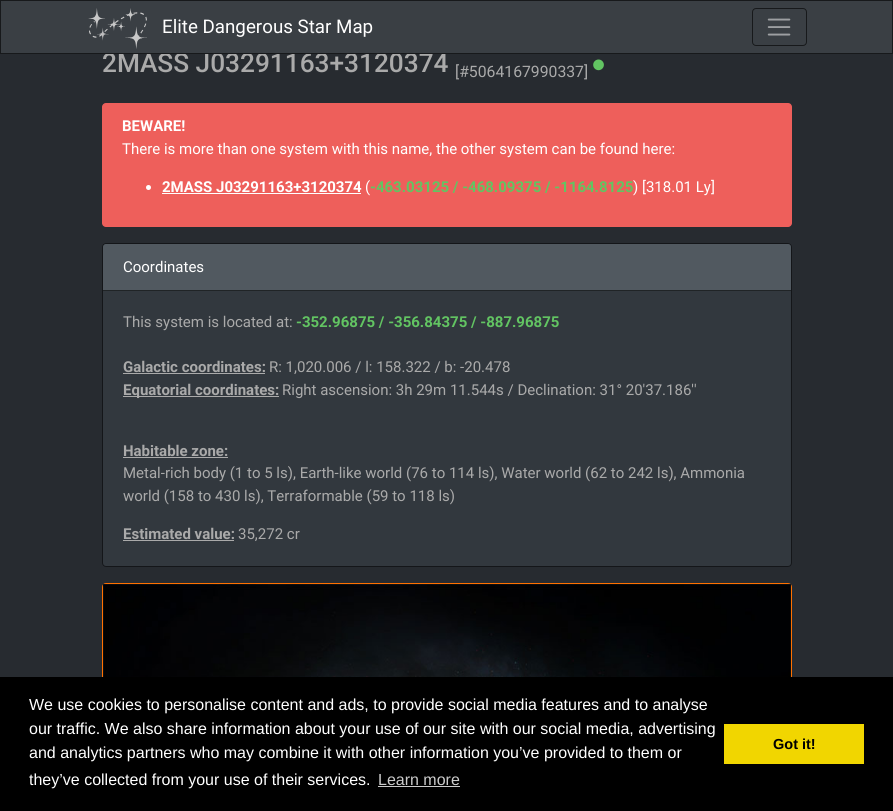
import math
import cairo

surface = cairo.ImageSurface(cairo.FORMAT_RGB24, 893, 811)
ctx = cairo.Context(surface)
options = cairo.FontOptions()
options.set_hint_metrics(cairo.HINT_METRICS_OFF)
options.set_hint_style(cairo.HINT_STYLE_NONE)
ctx.set_font_options(options)
ctx.set_miter_limit(4)


def round_rect(x, y, w, h, r):
    ctx.new_sub_path()
    for i, (u, v) in enumerate([(x + w - r, y + h - r), (x + r, y + h - r), (x + r, y + r), (x + w - r, y + r)]):
        ctx.arc(u, v, r, i * math.pi / 2, (i + 1) * math.pi / 2)
    ctx.close_path()


def picture(path, x, y, w, h):
    ctx.save()
    ctx.set_source_surface(cairo.ImageSurface.create_from_png(path), x, y)
    ctx.rectangle(x, y, w, h)
    ctx.fill()
    ctx.restore()


ctx.set_source_rgb(0.153, 0.169, 0.188)
ctx.paint()
ctx.select_font_face("Roboto Medium")
ctx.set_font_size(26.25)
ctx.set_source_rgb(0.667, 0.667, 0.667)
ctx.move_to(102, 72)
ctx.show_text("2MASS J03291163+3120374")
ctx.set_source_rgb(0.227, 0.247, 0.267)
ctx.rectangle(0.5, 0.5, 892, 53)
ctx.fill_preserve()
ctx.set_source_rgb(0.09, 0.098, 0.106)
ctx.set_line_width(1)
ctx.stroke()
picture("img1.png", 88, 8, 59, 41)
ctx.select_font_face("Roboto")
ctx.set_font_size(18.75)
ctx.set_source_rgb(1, 1, 1)
ctx.move_to(162, 33)
ctx.show_text("Elite Dangerous Star Map")
round_rect(752.5, 8.5, 54, 37, 3.5)
ctx.set_source_rgb(0.09, 0.098, 0.106)
ctx.stroke()
picture("img2.png", 767, 18, 24, 18)
ctx.set_font_size(15.75)
ctx.set_source_rgb(0.667, 0.667, 0.667)
ctx.move_to(455, 77)
ctx.show_text("[#5064167990337]")
picture("img3.png", 593, 59, 11, 12)
ctx.set_source_rgb(0.933, 0.373, 0.357)
round_rect(102, 103, 690, 124, 4)
ctx.fill()
ctx.select_font_face("Roboto", cairo.FONT_SLANT_NORMAL, cairo.FONT_WEIGHT_BOLD)
ctx.set_font_size(15)
ctx.set_source_rgb(1, 1, 1)
ctx.move_to(122, 131)
ctx.show_text("BEWARE!")
ctx.select_font_face("Roboto")
ctx.move_to(122, 154)
ctx.show_text("There is more than one system with this name, the other system can be found here:")
ctx.new_path()
ctx.arc(148.5, 187.5, 2.5, 0, 2 * math.pi)
ctx.fill()
ctx.select_font_face("Roboto", cairo.FONT_SLANT_NORMAL, cairo.FONT_WEIGHT_BOLD)
ctx.move_to(162, 192)
ctx.show_text("2MASS J03291163+3120374")
ctx.rectangle(162, 193, 199, 1)
ctx.fill()
ctx.select_font_face("Roboto")
ctx.move_to(365, 192)
ctx.show_text("(")
ctx.select_font_face("Roboto", cairo.FONT_SLANT_NORMAL, cairo.FONT_WEIGHT_BOLD)
ctx.set_source_rgb(0.384, 0.769, 0.384)
ctx.move_to(370, 192)
ctx.show_text("-463.03125 / -468.09375 / -1164.8125")
ctx.select_font_face("Roboto")
ctx.set_source_rgb(1, 1, 1)
ctx.move_to(633, 192)
ctx.show_text(") [318.01 Ly]")
ctx.set_source_rgb(0.196, 0.22, 0.243)
round_rect(102, 243, 690, 324, 4)
ctx.fill()
round_rect(102.5, 243.5, 689, 323, 3.5)
ctx.set_source_rgba(0, 0, 0, 0.6)
ctx.stroke()
ctx.set_source_rgb(0.318, 0.349, 0.376)
ctx.new_path()
ctx.move_to(106, 244)
ctx.line_to(788, 244)
ctx.curve_to(789.5, 244, 791, 245.5, 791, 247)
ctx.line_to(791, 291)
ctx.line_to(103, 291)
ctx.line_to(103, 247)
ctx.curve_to(103, 245.5, 104.5, 244, 106, 244)
ctx.close_path()
ctx.fill()
ctx.set_source_rgb(0.125, 0.141, 0.149)
ctx.rectangle(103, 290, 688, 1)
ctx.fill()
ctx.set_source_rgb(1, 1, 1)
ctx.move_to(123, 272)
ctx.show_text("Coordinates")
ctx.set_source_rgb(0.667, 0.667, 0.667)
ctx.move_to(123, 327)
ctx.show_text("This system is located at:")
ctx.select_font_face("Roboto", cairo.FONT_SLANT_NORMAL, cairo.FONT_WEIGHT_BOLD)
ctx.set_source_rgb(0.384, 0.769, 0.384)
ctx.move_to(296, 327)
ctx.show_text("-352.96875 / -356.84375 / -887.96875")
ctx.set_source_rgb(0.667, 0.667, 0.667)
ctx.move_to(123, 372)
ctx.show_text("Galactic coordinates:")
ctx.rectangle(123, 373, 142, 1)
ctx.fill()
ctx.select_font_face("Roboto")
ctx.move_to(269, 372)
ctx.show_text("R: 1,020.006 / l: 158.322 / b: -20.478")
ctx.rectangle(123, 396, 156, 1)
ctx.fill()
ctx.select_font_face("Roboto", cairo.FONT_SLANT_NORMAL, cairo.FONT_WEIGHT_BOLD)
ctx.move_to(123, 395)
ctx.show_text("Equatorial coordinates:")
ctx.select_font_face("Roboto")
ctx.move_to(282, 395)
ctx.show_text("Right ascension: 3h 29m 11.544s / Declination: 31° 20'37.186''")
ctx.select_font_face("Roboto", cairo.FONT_SLANT_NORMAL, cairo.FONT_WEIGHT_BOLD)
ctx.move_to(123, 456)
ctx.show_text("Habitable zone:")
ctx.rectangle(123, 457, 105, 1)
ctx.fill()
ctx.select_font_face("Roboto")
ctx.move_to(123, 478)
ctx.show_text("Metal-rich body (1 to 5 ls), Earth-like world (76 to 114 ls), Water world (62 to 242 ls), Ammonia")
ctx.move_to(123, 501)
ctx.show_text("world (158 to 430 ls), Terraformable (59 to 118 ls)")
ctx.select_font_face("Roboto", cairo.FONT_SLANT_NORMAL, cairo.FONT_WEIGHT_BOLD)
ctx.move_to(123, 539)
ctx.show_text("Estimated value:")
ctx.rectangle(123, 540, 111, 1)
ctx.fill()
ctx.select_font_face("Roboto")
ctx.move_to(238, 539)
ctx.show_text("35,272 cr")
round_rect(102.5, 583.5, 689, 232, 3.5)
ctx.set_source_rgb(1, 0.443, 0)
ctx.stroke()
picture("img4.png", 103, 584, 688, 93)
ctx.set_source_rgb(0, 0, 0)
ctx.rectangle(0, 677, 893, 134)
ctx.fill()
ctx.select_font_face("Liberation Sans")
ctx.set_font_size(16)
ctx.set_source_rgb(1, 1, 1)
ctx.move_to(29, 710)
ctx.show_text("We use cookies to personalise content and ads, to provide social media features and to analyse")
ctx.move_to(29, 734)
ctx.show_text("our traffic. We also share information about your use of our site with our social media, advertising")
ctx.move_to(29, 758)
ctx.show_text("and analytics partners who may combine it with other information you’ve provided to them or")
ctx.move_to(29, 785)
ctx.show_text("they’ve collected from your use of their services.")
ctx.set_source_rgb(0.8, 0.8, 0.8)
ctx.move_to(378, 785)
ctx.show_text("Learn more")
ctx.rectangle(378, 786, 82, 1)
ctx.fill()
ctx.set_source_rgb(0.945, 0.839, 0)
ctx.rectangle(724, 724, 140, 40)
ctx.fill()
ctx.select_font_face("Liberation Sans", cairo.FONT_SLANT_NORMAL, cairo.FONT_WEIGHT_BOLD)
ctx.set_font_size(14.5)
ctx.set_source_rgb(0, 0, 0)
ctx.move_to(773, 749)
ctx.show_text("Got it!")
surface.write_to_png("page.png")
